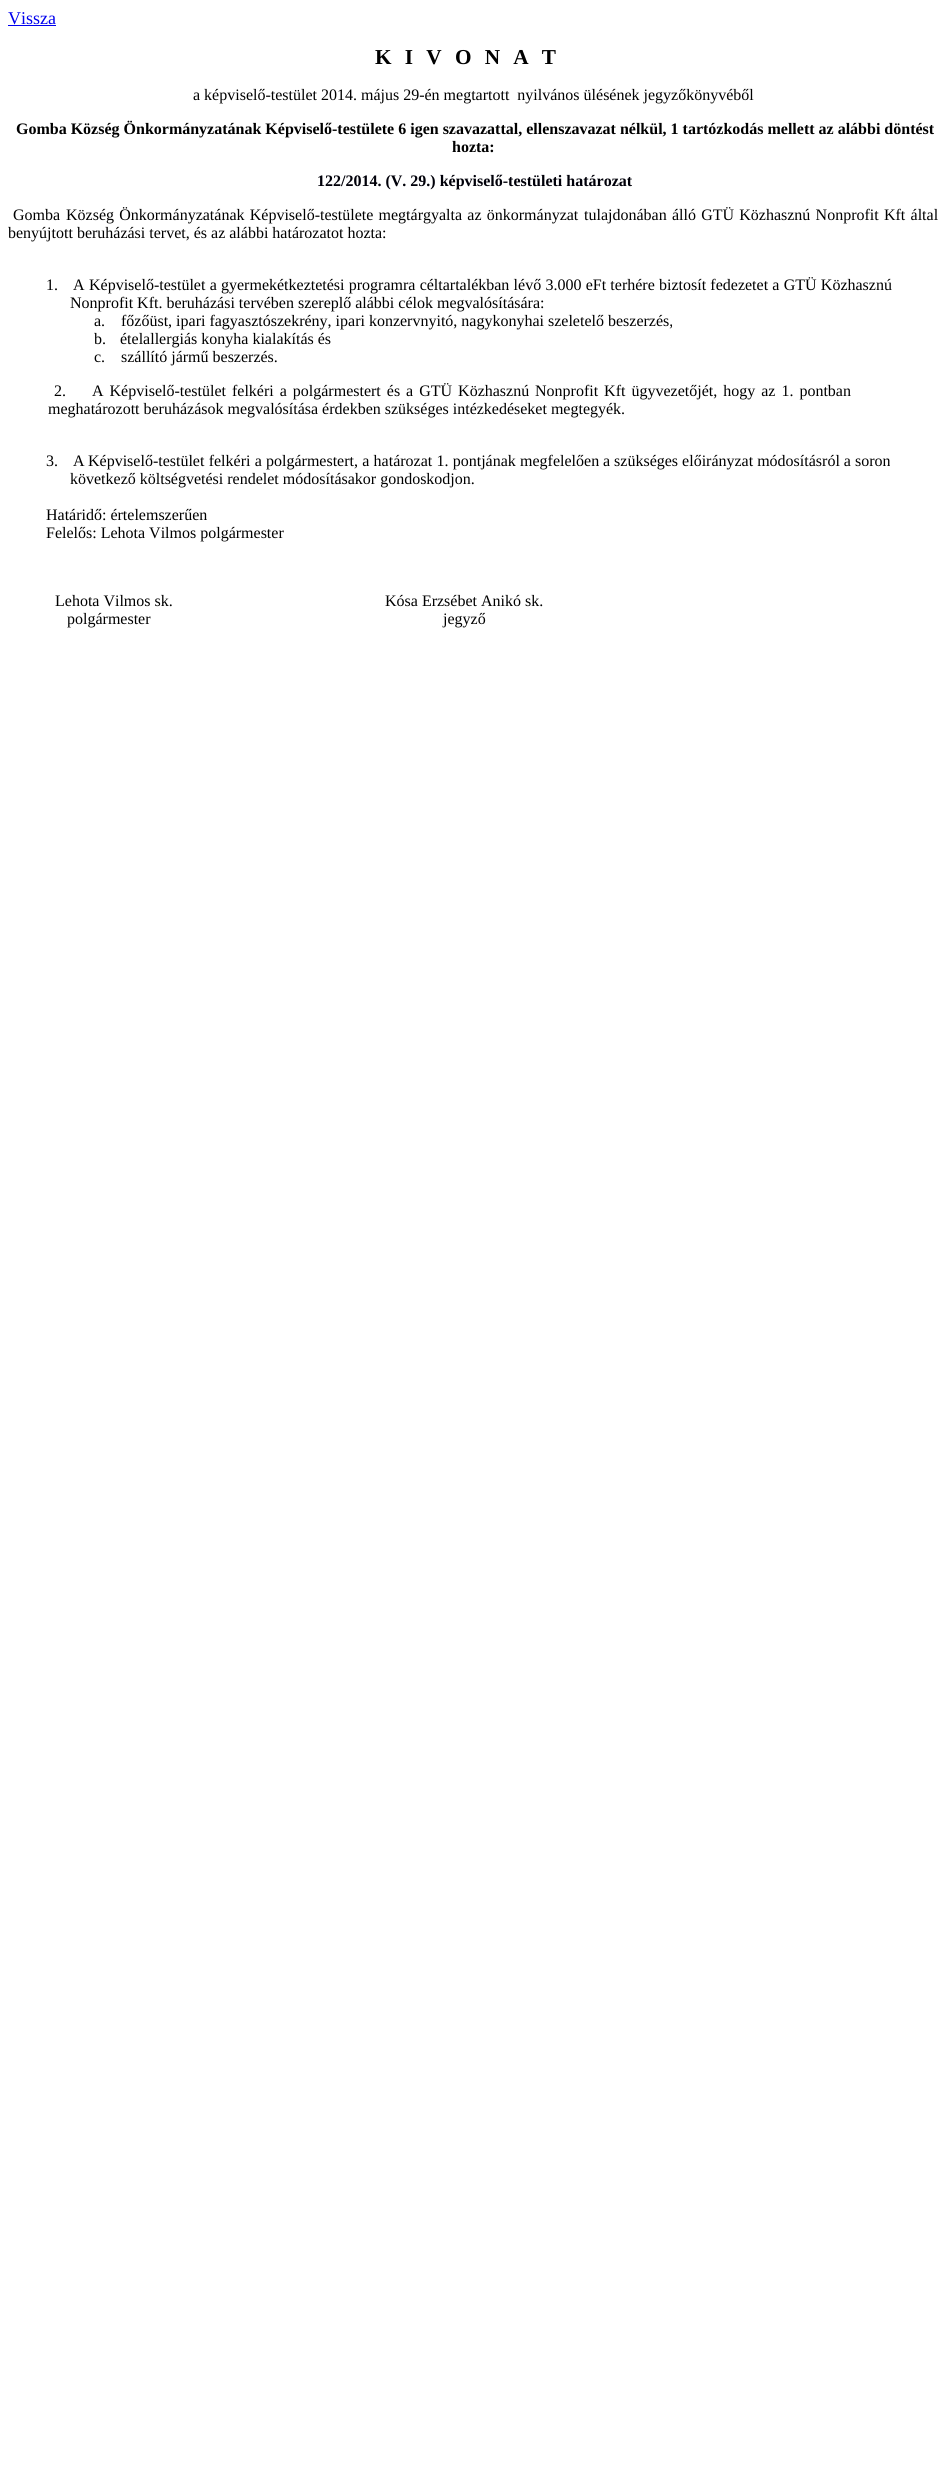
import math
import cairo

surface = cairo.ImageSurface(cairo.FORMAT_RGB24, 946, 2478)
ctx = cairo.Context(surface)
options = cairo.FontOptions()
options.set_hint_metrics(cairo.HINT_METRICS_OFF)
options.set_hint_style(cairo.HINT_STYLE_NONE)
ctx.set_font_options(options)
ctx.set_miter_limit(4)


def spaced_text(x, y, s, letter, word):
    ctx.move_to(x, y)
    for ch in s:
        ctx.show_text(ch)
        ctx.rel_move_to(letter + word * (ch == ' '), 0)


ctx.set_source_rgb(1, 1, 1)
ctx.paint()
ctx.select_font_face("Liberation Serif")
ctx.set_font_size(18)
ctx.set_source_rgb(0, 0, 0.933)
ctx.move_to(8, 24)
ctx.show_text("Vissza")
ctx.rectangle(8, 25, 48, 1)
ctx.fill()
ctx.select_font_face("Liberation Serif", cairo.FONT_SLANT_NORMAL, cairo.FONT_WEIGHT_BOLD)
ctx.set_font_size(21.25)
ctx.set_source_rgb(0, 0, 0)
spaced_text(375, 64, "KIVONAT", 13.25, 0)
ctx.select_font_face("Liberation Serif")
ctx.set_font_size(16)
ctx.move_to(193, 100)
ctx.show_text("a képviselő-testület 2014. május 29-én megtartott  nyilvános ülésének jegyzőkönyvéből")
ctx.select_font_face("Liberation Serif", cairo.FONT_SLANT_NORMAL, cairo.FONT_WEIGHT_BOLD)
ctx.move_to(16, 134)
ctx.show_text("Gomba Község Önkormányzatának Képviselő-testülete 6 igen szavazattal, ellenszavazat nélkül, 1 tartózkodás mellett az alábbi döntést")
ctx.move_to(452, 152)
ctx.show_text("hozta:")
ctx.set_source_rgb(0, 0, 0.039)
ctx.move_to(317, 186)
ctx.show_text("122/2014. (V. 29.) képviselő-testületi határozat")
ctx.select_font_face("Liberation Serif")
ctx.set_source_rgb(0, 0, 0)
ctx.move_to(13, 220)
ctx.show_text("Gomba")
spaced_text(66, 220, "Község Önkormányzatának Képviselő-testülete megtárgyalta az önkormányzat", 0, 1.25)
spaced_text(584, 220, "tulajdonában álló GTÜ Közhasznú Nonprofit Kft által", 0, 1.25)
ctx.move_to(8, 238)
ctx.show_text("benyújtott beruházási tervet, és az alábbi határozatot hozta:")
ctx.move_to(46, 290)
ctx.show_text("1.")
ctx.move_to(73, 290)
ctx.show_text("A")
spaced_text(89, 290, "Képviselő-testület a gyermekétkeztetési programra céltartalékban lévő 3.000 eFt terhére biztosít fedezetet a GTÜ Közhasznú", 0, 0.25)
ctx.move_to(70, 308)
ctx.show_text("Nonprofit Kft. beruházási tervében szereplő alábbi célok megvalósítására:")
ctx.move_to(94, 326)
ctx.show_text("a.")
ctx.move_to(121, 326)
ctx.show_text("főzőüst, ipari fagyasztószekrény, ipari konzervnyitó, nagykonyhai szeletelő beszerzés,")
ctx.move_to(94, 344)
ctx.show_text("b.")
ctx.move_to(120, 344)
ctx.show_text("ételallergiás konyha kialakítás és")
ctx.move_to(94, 362)
ctx.show_text("c.")
ctx.move_to(121, 362)
ctx.show_text("szállító jármű beszerzés.")
ctx.move_to(54, 396)
ctx.show_text("2.")
spaced_text(92, 396, "A Képviselő-testület felkéri a polgármestert és a GTÜ Közhasznú", 0, 2)
spaced_text(535, 396, "Nonprofit Kft ügyvezetőjét, hogy az 1. pontban", 0, 2)
ctx.move_to(48, 414)
ctx.show_text("meghatározott beruházások megvalósítása érdekben szükséges intézkedéseket megtegyék.")
ctx.move_to(46, 466)
ctx.show_text("3.")
ctx.move_to(73, 466)
ctx.show_text("A")
spaced_text(88, 466, "Képviselő-testület felkéri a polgármestert, a határozat 1. pontjának megfelelően", 0, 0.25)
ctx.move_to(603, 466)
ctx.show_text("a szükséges előirányzat módosításról a soron")
ctx.move_to(70, 484)
ctx.show_text("következő költségvetési rendelet módosításakor gondoskodjon.")
ctx.move_to(46, 520)
ctx.show_text("Határidő: értelemszerűen")
ctx.move_to(46, 538)
ctx.show_text("Felelős: Lehota Vilmos polgármester")
ctx.move_to(55, 606)
ctx.show_text("Lehota Vilmos sk.")
ctx.move_to(385, 606)
ctx.show_text("Kósa Erzsébet Anikó sk.")
ctx.move_to(67, 624)
ctx.show_text("polgármester")
ctx.move_to(443, 624)
ctx.show_text("jegyző")
surface.write_to_png("page.png")
